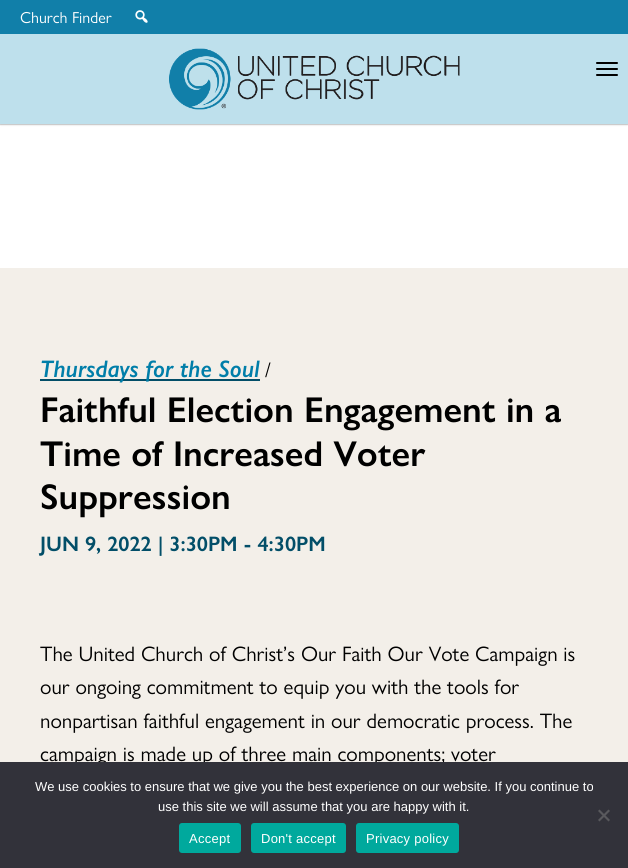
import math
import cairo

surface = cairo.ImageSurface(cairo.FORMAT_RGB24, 628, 868)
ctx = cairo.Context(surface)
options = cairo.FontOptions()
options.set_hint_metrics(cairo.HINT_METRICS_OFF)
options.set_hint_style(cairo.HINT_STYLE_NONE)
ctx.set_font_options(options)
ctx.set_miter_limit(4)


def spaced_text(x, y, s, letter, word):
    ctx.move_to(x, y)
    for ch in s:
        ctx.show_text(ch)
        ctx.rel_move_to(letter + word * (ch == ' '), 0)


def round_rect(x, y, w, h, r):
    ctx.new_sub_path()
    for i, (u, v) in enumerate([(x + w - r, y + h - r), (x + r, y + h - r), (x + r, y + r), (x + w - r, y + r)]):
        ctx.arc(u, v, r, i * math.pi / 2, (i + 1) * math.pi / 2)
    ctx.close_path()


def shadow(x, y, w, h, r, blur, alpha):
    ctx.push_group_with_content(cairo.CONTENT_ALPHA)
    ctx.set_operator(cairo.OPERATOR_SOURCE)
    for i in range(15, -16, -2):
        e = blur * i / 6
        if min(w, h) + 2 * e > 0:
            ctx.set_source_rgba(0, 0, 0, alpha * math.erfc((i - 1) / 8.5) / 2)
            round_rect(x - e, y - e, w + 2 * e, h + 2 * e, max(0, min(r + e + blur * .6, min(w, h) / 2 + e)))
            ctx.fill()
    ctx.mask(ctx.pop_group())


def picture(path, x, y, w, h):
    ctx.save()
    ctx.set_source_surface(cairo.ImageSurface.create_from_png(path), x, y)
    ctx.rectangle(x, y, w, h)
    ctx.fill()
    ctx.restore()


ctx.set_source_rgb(1, 1, 1)
ctx.paint()
ctx.set_source_rgb(0, 0, 0)
shadow(0, 0, 628, 124, 0, 1, 0.6)
ctx.set_source_rgb(0.745, 0.878, 0.922)
ctx.rectangle(0, 34, 628, 90)
ctx.fill()
ctx.set_source_rgb(0.067, 0.498, 0.663)
ctx.rectangle(0, 0, 628, 34)
ctx.fill()
ctx.select_font_face("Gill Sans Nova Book")
ctx.set_font_size(16)
ctx.set_source_rgb(1, 1, 1)
ctx.move_to(20, 23)
ctx.show_text("Church Finder")
picture("img1.png", 135, 10, 13, 13)
picture("img2.png", 169, 48, 291, 62)
ctx.set_source_rgb(0, 0, 0)
round_rect(596, 62, 22, 2, 1)
ctx.fill()
round_rect(596, 68, 22, 2, 1)
ctx.fill()
round_rect(596, 74, 22, 2, 1)
ctx.fill()
ctx.set_source_rgb(0.953, 0.937, 0.914)
ctx.rectangle(0, 268, 628, 494)
ctx.fill()
ctx.set_source_rgb(0.008, 0.306, 0.408)
ctx.rectangle(40, 379, 220, 2)
ctx.fill()
ctx.select_font_face("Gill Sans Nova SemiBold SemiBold", cairo.FONT_SLANT_ITALIC)
ctx.set_font_size(24)
ctx.set_source_rgb(0, 0.494, 0.663)
ctx.move_to(40, 377)
ctx.show_text("Thursdays for the Soul")
ctx.select_font_face("Gill Sans Nova Book")
ctx.set_font_size(21)
ctx.set_source_rgb(0, 0, 0)
ctx.move_to(265, 377)
ctx.show_text("/")
ctx.select_font_face("Gill Sans Nova SemiBold SemiBold")
ctx.set_font_size(36)
ctx.move_to(40, 422)
ctx.show_text("Faithful Election Engagement in a")
ctx.move_to(40, 466)
ctx.show_text("Time of Increased Voter")
ctx.move_to(40, 509)
ctx.show_text("Suppression")
ctx.set_font_size(21)
ctx.set_source_rgb(0.008, 0.306, 0.408)
ctx.move_to(40, 551)
ctx.show_text("JUN 9, 2022 | 3:30PM - 4:30PM")
ctx.select_font_face("Gill Sans Nova Book")
ctx.set_source_rgb(0, 0, 0)
ctx.move_to(40, 661)
ctx.show_text("The United Church of Christ’s Our Faith Our Vote Campaign is")
ctx.move_to(40, 694)
ctx.show_text("our ongoing commitment to equip you with the tools for")
ctx.move_to(40, 728)
ctx.show_text("nonpartisan faithful engagement in our democratic process. The")
ctx.move_to(40, 761)
ctx.show_text("campaign is made up of three main components; voter")
ctx.set_source_rgb(0.196, 0.196, 0.227)
ctx.rectangle(0, 762, 628, 106)
ctx.fill()
ctx.select_font_face("Liberation Sans")
ctx.set_font_size(13)
ctx.set_source_rgb(1, 1, 1)
ctx.move_to(35, 791)
ctx.show_text("We use cookies to ensure that we give you the best experience on our website. If you continue to")
ctx.move_to(158, 811)
ctx.show_text("use this site we will assume that you are happy with it.")
ctx.set_source_rgb(0.349, 0.349, 0.365)
ctx.new_path()
ctx.move_to(608.5, 809.5)
ctx.line_to(610, 811)
ctx.line_to(599.5, 821.5)
ctx.line_to(598, 820)
ctx.close_path()
ctx.fill()
ctx.new_path()
ctx.move_to(598, 811)
ctx.line_to(599.5, 809.5)
ctx.line_to(610, 820)
ctx.line_to(608.5, 821.5)
ctx.close_path()
ctx.fill()
ctx.set_source_rgb(0, 0.663, 0.616)
round_rect(179, 823, 62, 30, 3)
ctx.fill()
ctx.set_source_rgb(1, 1, 1)
spaced_text(189, 843, "Accept", 0.25, 0)
ctx.set_source_rgb(0, 0.663, 0.616)
round_rect(251, 823, 95, 30, 3)
ctx.fill()
ctx.set_source_rgb(1, 1, 1)
spaced_text(261, 843, "Don't accept", 0.25, 0)
ctx.set_source_rgb(0, 0.663, 0.616)
round_rect(356, 823, 103, 30, 3)
ctx.fill()
ctx.set_source_rgb(1, 1, 1)
spaced_text(366, 843, "Privacy policy", 0.25, 0)
surface.write_to_png("page.png")
